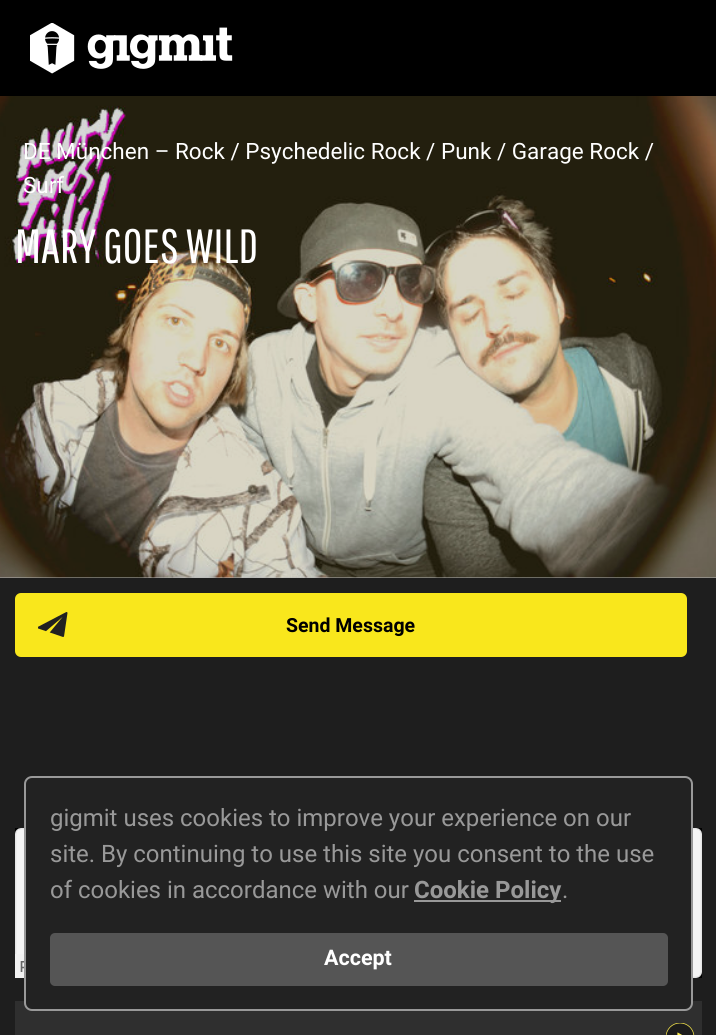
import math
import cairo

surface = cairo.ImageSurface(cairo.FORMAT_RGB24, 716, 1035)
ctx = cairo.Context(surface)
options = cairo.FontOptions()
options.set_hint_metrics(cairo.HINT_METRICS_OFF)
options.set_hint_style(cairo.HINT_STYLE_NONE)
ctx.set_font_options(options)
ctx.set_miter_limit(4)


def round_rect(x, y, w, h, r):
    ctx.new_sub_path()
    for i, (u, v) in enumerate([(x + w - r, y + h - r), (x + r, y + h - r), (x + r, y + r), (x + w - r, y + r)]):
        ctx.arc(u, v, r, i * math.pi / 2, (i + 1) * math.pi / 2)
    ctx.close_path()


def picture(path, x, y, w, h):
    ctx.save()
    ctx.set_source_surface(cairo.ImageSurface.create_from_png(path), x, y)
    ctx.rectangle(x, y, w, h)
    ctx.fill()
    ctx.restore()


ctx.set_source_rgb(0.118, 0.118, 0.118)
ctx.paint()
ctx.set_source_rgb(0, 0, 0)
ctx.rectangle(0, 0, 716, 96)
ctx.fill()
picture("img1.png", 30, 23, 203, 51)
ctx.set_source_rgb(0.722, 0.722, 0.722)
ctx.rectangle(0, 577, 716, 1)
ctx.fill()
picture("img2.png", 0, 96, 716, 482)
ctx.select_font_face("Roboto")
ctx.set_font_size(22.5)
ctx.set_source_rgb(1, 1, 1)
ctx.move_to(23, 159)
ctx.show_text("DE München – Rock / Psychedelic Rock / Punk / Garage Rock /")
ctx.move_to(23, 193)
ctx.show_text("Surf")
ctx.select_font_face("Pathway Gothic One")
ctx.set_font_size(48)
ctx.move_to(15, 263)
ctx.show_text("MARY GOES WILD")
ctx.set_source_rgb(0.973, 0.906, 0.11)
round_rect(15, 593, 672, 64, 6)
ctx.fill()
picture("img3.png", 38, 612, 30, 25)
ctx.select_font_face("Roboto", cairo.FONT_SLANT_NORMAL, cairo.FONT_WEIGHT_BOLD)
ctx.set_font_size(19.5)
ctx.set_source_rgb(0, 0, 0)
ctx.move_to(286, 632)
ctx.show_text("Send Message")
ctx.rectangle(15, 828, 687, 150)
ctx.fill()
picture("img4.png", 15, 828, 687, 150)
ctx.set_source_rgb(0.184, 0.184, 0.184)
ctx.rectangle(15, 1001, 687, 34)
ctx.fill()
picture("img5.png", 666, 1023, 29, 12)
ctx.set_source_rgb(0.133, 0.133, 0.133)
round_rect(25, 777, 667, 233, 7)
ctx.fill_preserve()
ctx.set_source_rgb(0.6, 0.6, 0.6)
ctx.stroke()
ctx.select_font_face("Roboto")
ctx.set_font_size(24)
ctx.move_to(50, 826)
ctx.show_text("gigmit uses cookies to improve your experience on our")
ctx.move_to(50, 862)
ctx.show_text("site. By continuing to use this site you consent to the use")
ctx.move_to(50, 898)
ctx.show_text("of cookies in accordance with our")
ctx.rectangle(414, 900, 147, 2)
ctx.fill()
ctx.select_font_face("Roboto", cairo.FONT_SLANT_NORMAL, cairo.FONT_WEIGHT_BOLD)
ctx.move_to(414, 898)
ctx.show_text("Cookie Policy")
ctx.select_font_face("Roboto")
ctx.move_to(562, 898)
ctx.show_text(".")
ctx.set_source_rgb(0.333, 0.333, 0.333)
round_rect(50, 933, 618, 53, 5)
ctx.fill()
ctx.select_font_face("Roboto", cairo.FONT_SLANT_NORMAL, cairo.FONT_WEIGHT_BOLD)
ctx.set_font_size(21.5)
ctx.set_source_rgb(1, 1, 1)
ctx.move_to(324, 965)
ctx.show_text("Accept")
surface.write_to_png("page.png")
